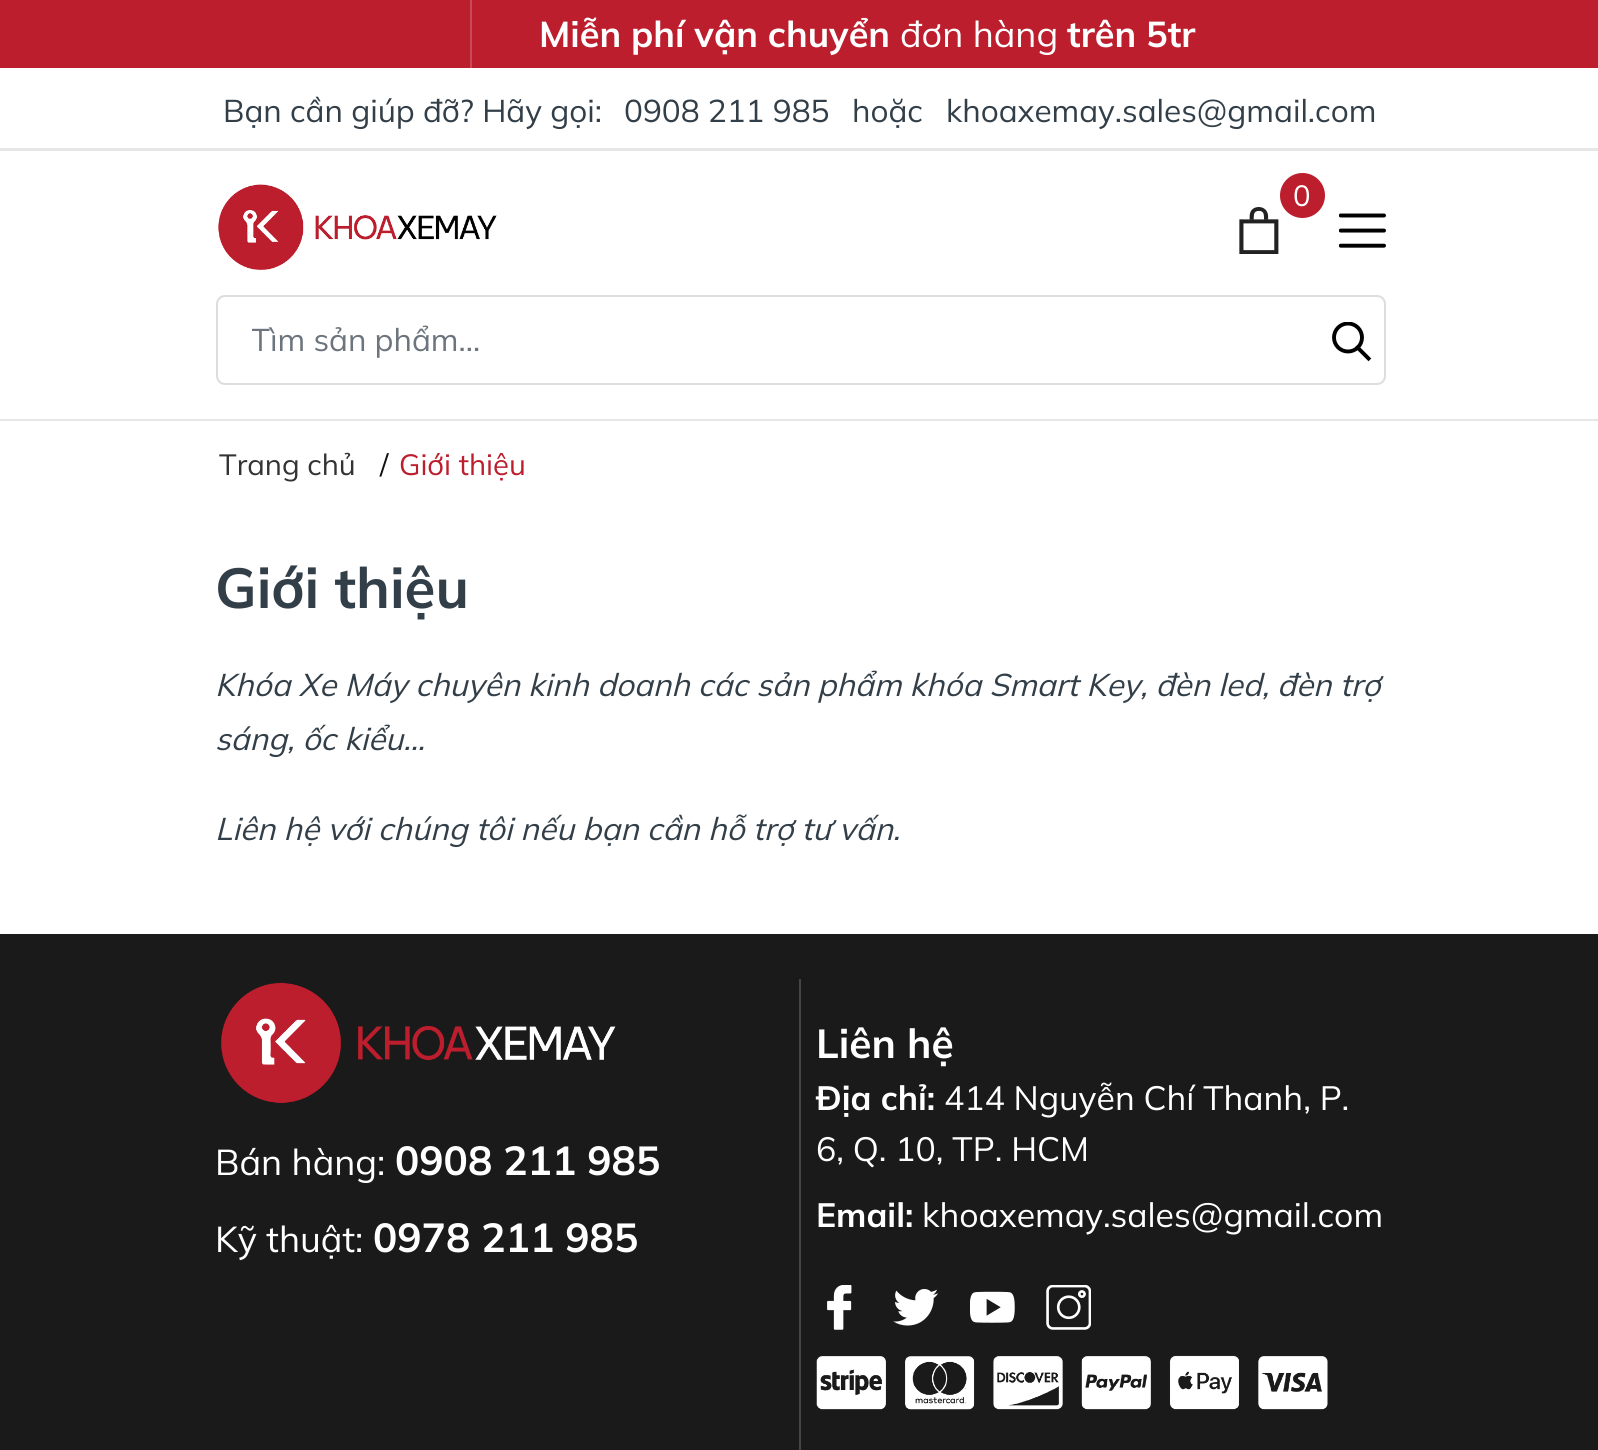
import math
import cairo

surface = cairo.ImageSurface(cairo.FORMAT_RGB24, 1598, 1450)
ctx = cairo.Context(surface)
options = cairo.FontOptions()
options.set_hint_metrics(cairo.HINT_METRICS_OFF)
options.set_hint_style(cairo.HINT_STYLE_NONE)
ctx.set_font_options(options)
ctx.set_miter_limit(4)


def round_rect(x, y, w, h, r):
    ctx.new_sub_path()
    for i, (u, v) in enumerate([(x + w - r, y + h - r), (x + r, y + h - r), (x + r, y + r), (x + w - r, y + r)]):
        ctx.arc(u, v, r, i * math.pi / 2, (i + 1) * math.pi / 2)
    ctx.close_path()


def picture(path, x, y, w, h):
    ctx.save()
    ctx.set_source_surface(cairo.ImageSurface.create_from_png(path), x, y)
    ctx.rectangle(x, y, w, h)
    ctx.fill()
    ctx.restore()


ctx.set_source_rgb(1, 1, 1)
ctx.paint()
ctx.set_source_rgb(0.737, 0.118, 0.176)
ctx.rectangle(0, 0, 1598, 68)
ctx.fill()
ctx.set_source_rgb(0.788, 0.294, 0.341)
ctx.rectangle(470, 0, 2, 68)
ctx.fill()
ctx.select_font_face("Mulish", cairo.FONT_SLANT_NORMAL, cairo.FONT_WEIGHT_BOLD)
ctx.set_font_size(36)
ctx.set_source_rgb(1, 1, 1)
ctx.move_to(539, 47)
ctx.show_text("Miễn phí vận chuyển")
ctx.select_font_face("Mulish")
ctx.move_to(900, 47)
ctx.show_text("đơn hàng")
ctx.select_font_face("Mulish", cairo.FONT_SLANT_NORMAL, cairo.FONT_WEIGHT_BOLD)
ctx.move_to(1067, 47)
ctx.show_text("trên 5tr")
ctx.set_source_rgb(0.902, 0.902, 0.902)
ctx.new_path()
ctx.move_to(0, 148)
ctx.line_to(0, 151)
ctx.line_to(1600, 151)
ctx.line_to(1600, 70)
ctx.line_to(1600, 148)
ctx.close_path()
ctx.fill()
ctx.select_font_face("Mulish")
ctx.set_font_size(31.5)
ctx.set_source_rgb(0.2, 0.247, 0.282)
ctx.move_to(223, 122)
ctx.show_text("Bạn cần giúp đỡ? Hãy gọi:")
ctx.move_to(624, 122)
ctx.show_text("0908 211 985")
ctx.move_to(852, 122)
ctx.show_text("hoặc")
ctx.move_to(946, 122)
ctx.show_text("khoaxemay.sales@gmail.com")
picture("img1.png", 218, 184, 279, 86)
ctx.set_source_rgb(0.737, 0.118, 0.176)
ctx.arc(1302.5, 195.5, 22.5, 0, 2 * math.pi)
ctx.fill()
ctx.set_font_size(29.25)
ctx.set_source_rgb(1, 1, 1)
ctx.move_to(1293, 206)
ctx.show_text("0")
picture("img2.png", 1239, 207, 40, 47)
picture("img3.png", 1339, 213, 47, 35)
round_rect(217, 296, 1168, 88, 8)
ctx.set_source_rgb(0.867, 0.867, 0.867)
ctx.stroke()
ctx.save()
ctx.rectangle(252, 320, 1064, 40)
ctx.clip()
ctx.set_font_size(31.5)
ctx.set_source_rgb(0.424, 0.459, 0.49)
ctx.move_to(251, 351)
ctx.show_text("Tìm sản phẩm...")
ctx.restore()
ctx.new_path()
ctx.move_to(1368.5, 358.5)
ctx.line_to(1357.5, 347.5)
ctx.set_source_rgb(0, 0, 0)
ctx.set_line_width(3.9)
ctx.set_line_cap(cairo.LINE_CAP_SQUARE)
ctx.stroke()
ctx.save()
ctx.rectangle(1332, 322, 41, 40)
ctx.clip()
ctx.arc(1348, 337.5, 14, 0, 2 * math.pi)
ctx.set_line_cap(cairo.LINE_CAP_BUTT)
ctx.stroke()
ctx.restore()
ctx.set_source_rgb(0.902, 0.902, 0.902)
ctx.rectangle(0, 419, 1598, 2)
ctx.fill()
ctx.set_source_rgb(0.2, 0.2, 0.2)
ctx.move_to(219, 475)
ctx.show_text("Trang chủ")
ctx.set_source_rgb(0.067, 0.067, 0.067)
ctx.move_to(380, 475)
ctx.show_text("/")
ctx.set_source_rgb(0.737, 0.118, 0.176)
ctx.move_to(399, 475)
ctx.show_text("Giới thiệu")
ctx.select_font_face("Mulish", cairo.FONT_SLANT_NORMAL, cairo.FONT_WEIGHT_BOLD)
ctx.set_font_size(56.25)
ctx.set_source_rgb(0.2, 0.247, 0.282)
ctx.move_to(215, 608)
ctx.show_text("Giới thiệu")
ctx.select_font_face("Mulish", cairo.FONT_SLANT_ITALIC)
ctx.set_font_size(31.5)
ctx.move_to(215, 696)
ctx.show_text("Khóa Xe Máy chuyên kinh doanh các sản phẩm khóa Smart Key, đèn led, đèn trợ")
ctx.move_to(215, 750)
ctx.show_text("sáng, ốc kiểu...")
ctx.move_to(215, 840)
ctx.show_text("Liên hệ với chúng tôi nếu bạn cần hỗ trợ tư vấn.")
ctx.set_source_rgb(0.102, 0.102, 0.102)
ctx.rectangle(0, 934, 1598, 516)
ctx.fill()
picture("img4.png", 221, 982, 395, 121)
ctx.set_source_rgb(0.267, 0.267, 0.267)
ctx.rectangle(799, 979, 2, 471)
ctx.fill()
ctx.select_font_face("Mulish")
ctx.set_font_size(36)
ctx.set_source_rgb(1, 1, 1)
ctx.move_to(215, 1175)
ctx.show_text("Bán hàng:")
ctx.select_font_face("Mulish", cairo.FONT_SLANT_NORMAL, cairo.FONT_WEIGHT_BOLD)
ctx.set_font_size(40.5)
ctx.move_to(395, 1175)
ctx.show_text("0908 211 985")
ctx.select_font_face("Mulish")
ctx.set_font_size(36)
ctx.move_to(215, 1252)
ctx.show_text("Kỹ thuật:")
ctx.select_font_face("Mulish", cairo.FONT_SLANT_NORMAL, cairo.FONT_WEIGHT_BOLD)
ctx.set_font_size(40.5)
ctx.move_to(373, 1252)
ctx.show_text("0978 211 985")
ctx.move_to(816, 1058)
ctx.show_text("Liên hệ")
ctx.set_font_size(33.75)
ctx.move_to(816, 1110)
ctx.show_text("Địa chỉ:")
ctx.select_font_face("Mulish")
ctx.move_to(944, 1110)
ctx.show_text("414 Nguyễn Chí Thanh, P.")
ctx.move_to(816, 1161)
ctx.show_text("6, Q. 10, TP. HCM")
ctx.select_font_face("Mulish", cairo.FONT_SLANT_NORMAL, cairo.FONT_WEIGHT_BOLD)
ctx.move_to(816, 1227)
ctx.show_text("Email:")
ctx.select_font_face("Mulish")
ctx.move_to(922, 1227)
ctx.show_text("khoaxemay.sales@gmail.com")
picture("img5.png", 827, 1285, 25, 45)
picture("img6.png", 893, 1289, 45, 37)
picture("img7.png", 970, 1291, 45, 32)
picture("img8.png", 1046, 1285, 45, 45)
picture("img9.png", 816, 1355, 512, 55)
surface.write_to_png("page.png")
